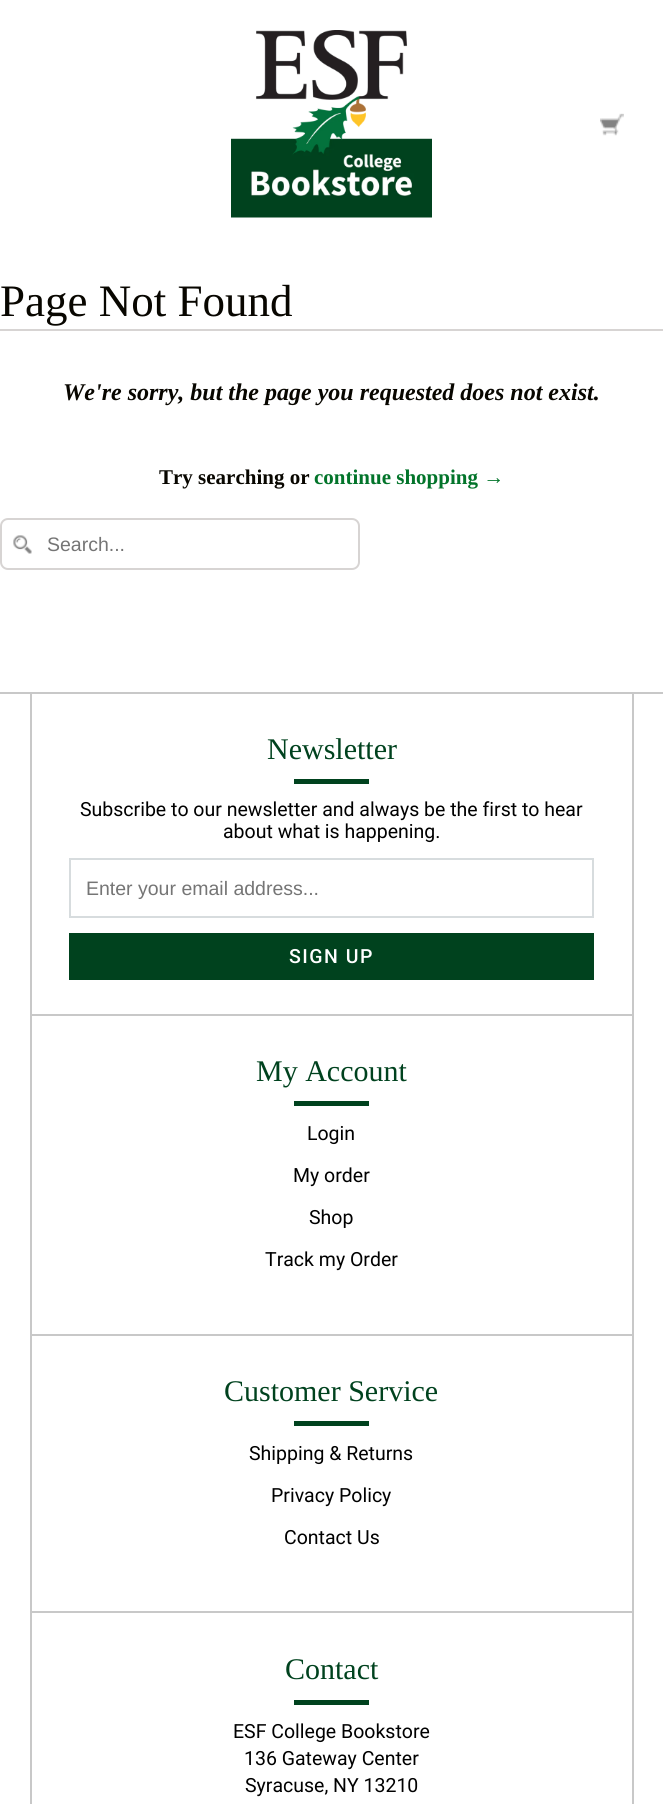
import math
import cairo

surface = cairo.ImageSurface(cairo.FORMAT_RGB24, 663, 1804)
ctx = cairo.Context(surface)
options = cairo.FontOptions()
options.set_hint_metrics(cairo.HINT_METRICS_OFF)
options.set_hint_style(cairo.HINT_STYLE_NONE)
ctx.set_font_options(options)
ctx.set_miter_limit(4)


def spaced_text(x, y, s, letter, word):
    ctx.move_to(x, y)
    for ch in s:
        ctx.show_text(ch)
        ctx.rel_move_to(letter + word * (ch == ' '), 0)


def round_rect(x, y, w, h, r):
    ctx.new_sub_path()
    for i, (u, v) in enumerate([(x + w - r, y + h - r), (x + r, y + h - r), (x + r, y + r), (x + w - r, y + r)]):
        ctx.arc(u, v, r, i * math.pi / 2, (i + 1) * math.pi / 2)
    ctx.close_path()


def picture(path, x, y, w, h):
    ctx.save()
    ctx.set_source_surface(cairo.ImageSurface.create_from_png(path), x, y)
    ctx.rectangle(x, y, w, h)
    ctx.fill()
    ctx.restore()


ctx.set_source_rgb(1, 1, 1)
ctx.paint()
picture("img1.png", 231, 30, 201, 188)
picture("img2.png", 600, 113, 24, 23)
ctx.set_source_rgb(0.843, 0.831, 0.827)
ctx.rectangle(0, 329, 663, 2)
ctx.fill()
ctx.select_font_face("Liberation Serif")
ctx.set_font_size(45)
ctx.set_source_rgb(0.035, 0.027, 0)
ctx.move_to(0, 316)
ctx.show_text("Page Not Found")
ctx.select_font_face("Liberation Serif", cairo.FONT_SLANT_ITALIC, cairo.FONT_WEIGHT_BOLD)
ctx.set_font_size(24)
ctx.move_to(63, 400)
ctx.show_text("We're sorry, but the page you requested does not exist.")
ctx.select_font_face("Liberation Serif", cairo.FONT_SLANT_NORMAL, cairo.FONT_WEIGHT_BOLD)
ctx.set_font_size(21)
ctx.move_to(159, 484)
ctx.show_text("Try searching or")
ctx.set_source_rgb(0.008, 0.455, 0.165)
ctx.move_to(314, 484)
ctx.show_text("continue shopping →")
picture("img3.png", 13, 535, 19, 19)
round_rect(1, 519, 358, 50, 7)
ctx.set_source_rgb(0.843, 0.831, 0.827)
ctx.stroke()
ctx.select_font_face("Liberation Sans")
ctx.set_font_size(19.5)
ctx.set_source_rgb(0.459, 0.459, 0.459)
ctx.move_to(47, 551)
ctx.show_text("Search...")
ctx.set_source_rgb(0.784, 0.784, 0.784)
ctx.rectangle(0, 692, 663, 2)
ctx.fill()
ctx.rectangle(632, 693, 2, 642)
ctx.fill()
ctx.rectangle(30, 1014, 603, 2)
ctx.fill()
ctx.rectangle(30, 693, 2, 323)
ctx.fill()
ctx.select_font_face("Liberation Serif")
ctx.set_font_size(30)
ctx.set_source_rgb(0, 0.259, 0.118)
ctx.move_to(267, 759)
ctx.show_text("Newsletter")
ctx.rectangle(294, 779, 75, 5)
ctx.fill()
ctx.select_font_face("Roboto")
ctx.set_font_size(19.5)
ctx.set_source_rgb(0, 0, 0)
ctx.move_to(80, 816)
ctx.show_text("Subscribe to our newsletter and always be the first to hear")
ctx.move_to(223, 838)
ctx.show_text("about what is happening.")
ctx.rectangle(70, 859, 523, 58)
ctx.set_source_rgb(0.843, 0.863, 0.871)
ctx.stroke()
ctx.select_font_face("Liberation Sans")
ctx.set_source_rgb(0.459, 0.459, 0.459)
ctx.move_to(86, 895)
ctx.show_text("Enter your email address...")
ctx.set_source_rgb(0, 0.259, 0.118)
ctx.rectangle(69, 933, 525, 47)
ctx.fill()
ctx.select_font_face("Roboto Medium")
ctx.set_source_rgb(1, 1, 1)
spaced_text(289, 963, "SIGN UP", 1.5, 0)
ctx.set_source_rgb(0.784, 0.784, 0.784)
ctx.rectangle(30, 1334, 603, 2)
ctx.fill()
ctx.rectangle(30, 1016, 2, 319)
ctx.fill()
ctx.select_font_face("Liberation Serif")
ctx.set_font_size(30)
ctx.set_source_rgb(0, 0.259, 0.118)
ctx.move_to(256, 1081)
ctx.show_text("My Account")
ctx.rectangle(294, 1101, 75, 5)
ctx.fill()
ctx.select_font_face("Roboto")
ctx.set_font_size(19.5)
ctx.set_source_rgb(0, 0, 0)
ctx.move_to(307, 1140)
ctx.show_text("Login")
ctx.move_to(293, 1182)
ctx.show_text("My order")
ctx.move_to(309, 1224)
ctx.show_text("Shop")
ctx.move_to(265, 1266)
ctx.show_text("Track my Order")
ctx.set_source_rgb(0.784, 0.784, 0.784)
ctx.rectangle(632, 1335, 2, 469)
ctx.fill()
ctx.rectangle(30, 1611, 603, 2)
ctx.fill()
ctx.rectangle(30, 1335, 2, 469)
ctx.fill()
ctx.select_font_face("Liberation Serif")
ctx.set_font_size(30)
ctx.set_source_rgb(0, 0.259, 0.118)
ctx.move_to(224, 1401)
ctx.show_text("Customer Service")
ctx.rectangle(294, 1421, 75, 5)
ctx.fill()
ctx.select_font_face("Roboto")
ctx.set_font_size(19.5)
ctx.set_source_rgb(0, 0, 0)
ctx.move_to(249, 1460)
ctx.show_text("Shipping & Returns")
ctx.move_to(271, 1502)
ctx.show_text("Privacy Policy")
ctx.move_to(284, 1544)
ctx.show_text("Contact Us")
ctx.select_font_face("Liberation Serif")
ctx.set_font_size(30)
ctx.set_source_rgb(0, 0.259, 0.118)
ctx.move_to(285, 1679)
ctx.show_text("Contact")
ctx.rectangle(294, 1700, 75, 5)
ctx.fill()
ctx.select_font_face("Roboto")
ctx.set_font_size(19.5)
ctx.set_source_rgb(0, 0, 0)
ctx.move_to(233, 1738)
ctx.show_text("ESF College Bookstore")
ctx.move_to(244, 1765)
ctx.show_text("136 Gateway Center")
ctx.move_to(245, 1792)
ctx.show_text("Syracuse, NY 13210")
surface.write_to_png("page.png")
